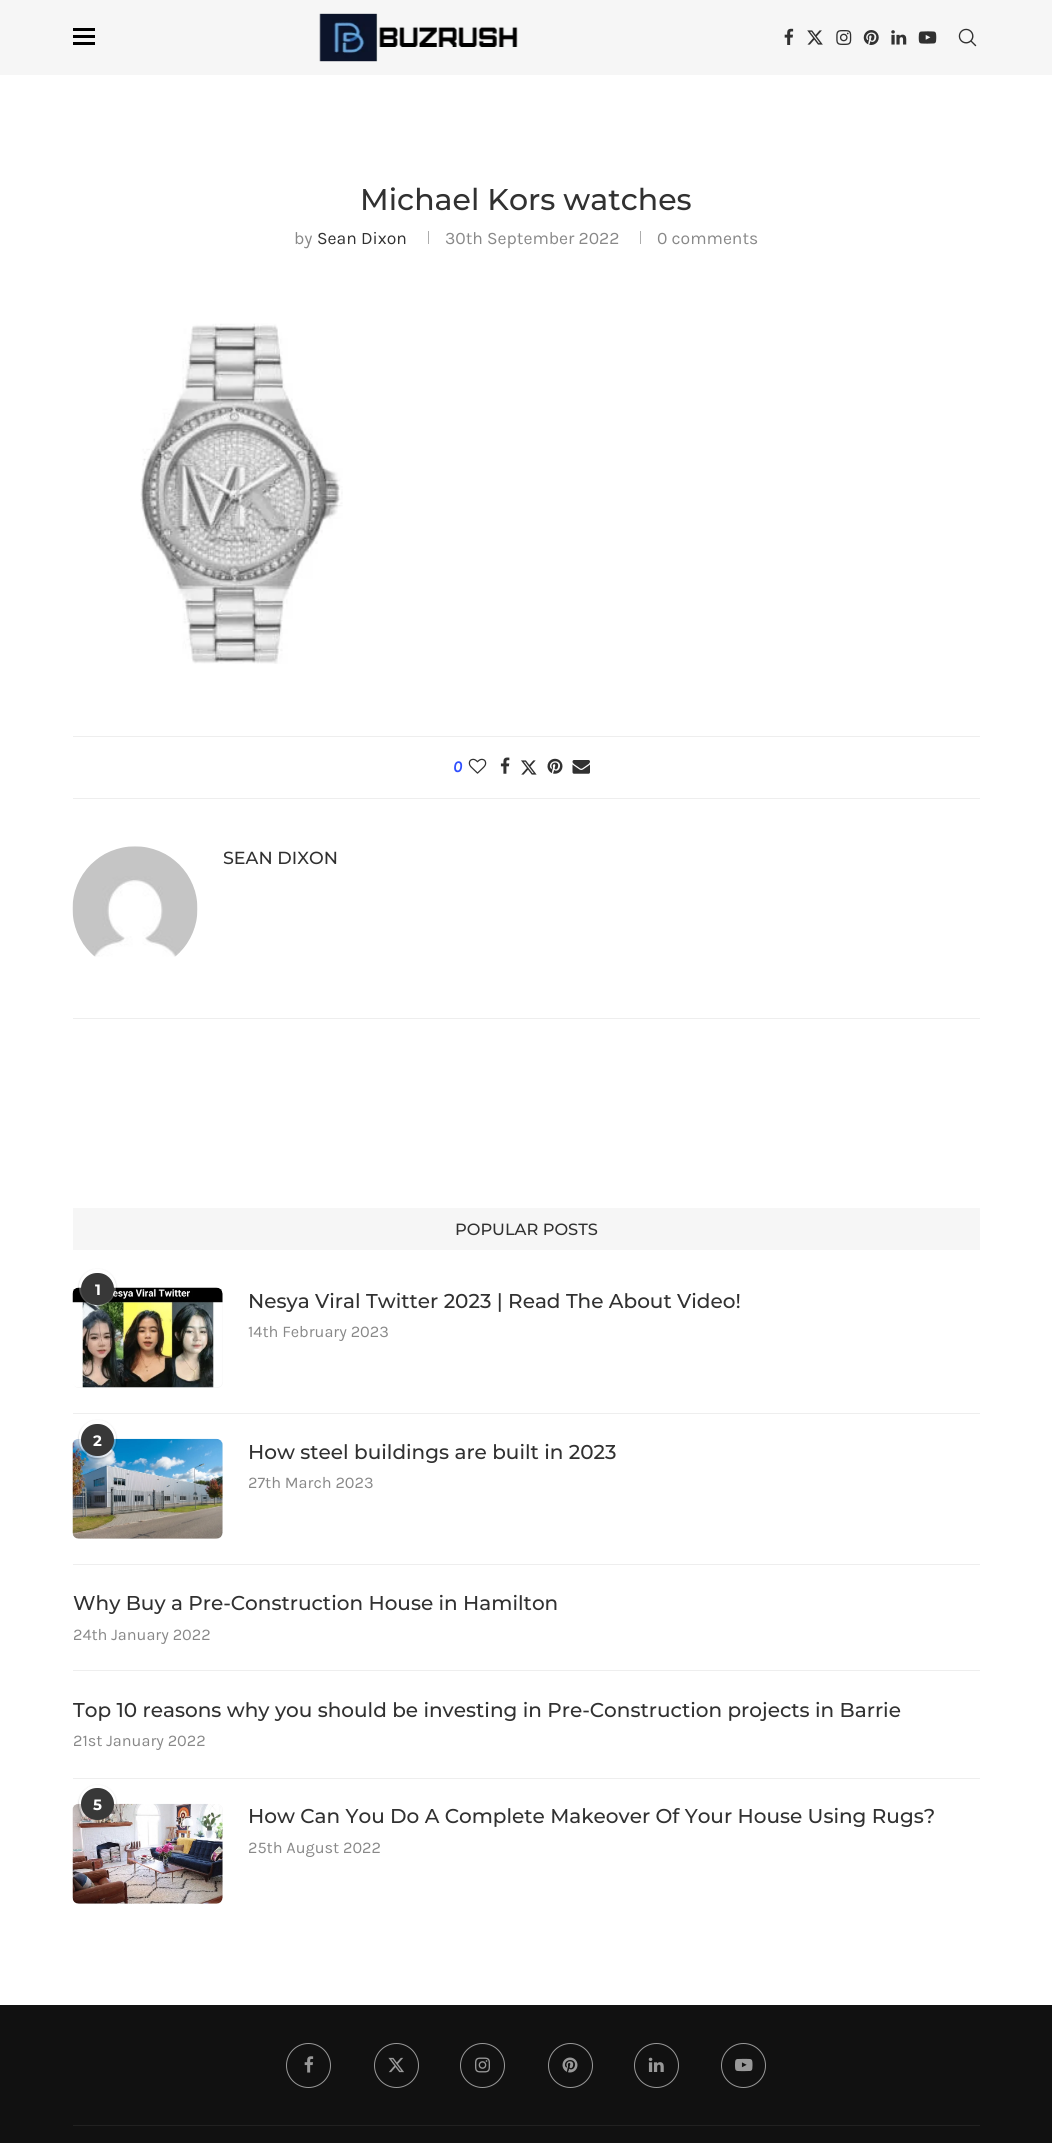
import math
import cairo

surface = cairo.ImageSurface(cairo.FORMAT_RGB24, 1052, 2143)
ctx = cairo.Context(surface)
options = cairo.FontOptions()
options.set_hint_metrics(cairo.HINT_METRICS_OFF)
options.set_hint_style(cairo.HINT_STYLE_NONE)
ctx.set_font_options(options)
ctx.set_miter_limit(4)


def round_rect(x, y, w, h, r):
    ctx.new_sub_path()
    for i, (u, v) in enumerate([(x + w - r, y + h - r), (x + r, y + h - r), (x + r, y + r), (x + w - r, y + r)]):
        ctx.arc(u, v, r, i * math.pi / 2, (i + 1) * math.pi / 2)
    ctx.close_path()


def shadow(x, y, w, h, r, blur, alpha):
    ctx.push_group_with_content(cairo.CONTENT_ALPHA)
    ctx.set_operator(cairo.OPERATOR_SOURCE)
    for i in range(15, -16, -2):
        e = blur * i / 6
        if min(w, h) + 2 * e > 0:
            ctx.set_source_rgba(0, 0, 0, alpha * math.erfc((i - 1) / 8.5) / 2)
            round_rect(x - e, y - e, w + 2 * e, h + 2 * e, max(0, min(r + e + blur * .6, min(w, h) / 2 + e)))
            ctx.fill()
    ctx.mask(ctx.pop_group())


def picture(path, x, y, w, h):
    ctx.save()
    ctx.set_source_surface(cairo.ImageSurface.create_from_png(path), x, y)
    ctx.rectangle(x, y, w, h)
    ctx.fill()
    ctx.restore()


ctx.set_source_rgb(1, 1, 1)
ctx.paint()
ctx.set_source_rgb(0.961, 0.961, 0.961)
ctx.rectangle(0, 0, 1052, 75)
ctx.fill()
ctx.set_source_rgb(0, 0, 0)
ctx.rectangle(73, 28, 22, 3)
ctx.fill()
ctx.rectangle(73, 35, 22, 3)
ctx.fill()
ctx.rectangle(73, 42, 22, 3)
ctx.fill()
picture("img1.png", 319, 13, 199, 49)
picture("img2.png", 784, 28, 10, 17)
picture("img3.png", 807, 30, 16, 15)
picture("img4.png", 836, 30, 16, 15)
picture("img5.png", 863, 30, 16, 15)
picture("img6.png", 891, 30, 16, 15)
picture("img7.png", 918, 31, 19, 13)
picture("img8.png", 958, 28, 19, 19)
ctx.select_font_face("Montserrat Medium")
ctx.set_font_size(30)
ctx.set_source_rgb(0.192, 0.192, 0.192)
ctx.move_to(360, 210)
ctx.show_text("Michael Kors watches")
ctx.select_font_face("Karla")
ctx.set_font_size(17.5)
ctx.set_source_rgb(0.533, 0.533, 0.533)
ctx.move_to(294, 244)
ctx.show_text("by")
ctx.set_source_rgb(0.192, 0.192, 0.192)
ctx.move_to(317, 244)
ctx.show_text("Sean Dixon")
ctx.set_source_rgb(0.675, 0.675, 0.675)
ctx.rectangle(428, 231, 1, 13)
ctx.fill()
ctx.set_source_rgb(0.533, 0.533, 0.533)
ctx.move_to(445, 244)
ctx.show_text("30th September 2022")
ctx.set_source_rgb(0.675, 0.675, 0.675)
ctx.rectangle(640, 231, 1, 13)
ctx.fill()
ctx.set_source_rgb(0.533, 0.533, 0.533)
ctx.move_to(657, 244)
ctx.show_text("0 comments")
picture("img9.png", 140, 323, 203, 341)
ctx.set_source_rgb(0.933, 0.933, 0.933)
ctx.rectangle(73, 736, 907, 1)
ctx.fill()
ctx.select_font_face("Karla", cairo.FONT_SLANT_ITALIC, cairo.FONT_WEIGHT_BOLD)
ctx.set_font_size(16.25)
ctx.set_source_rgb(0.188, 0.31, 0.996)
ctx.move_to(453, 772)
ctx.show_text("0")
picture("img10.png", 468, 758, 19, 16)
picture("img11.png", 500, 757, 10, 17)
picture("img12.png", 521, 760, 16, 15)
picture("img13.png", 547, 758, 16, 16)
picture("img14.png", 572, 760, 18, 14)
ctx.set_source_rgb(0.933, 0.933, 0.933)
ctx.rectangle(73, 798, 907, 1)
ctx.fill()
picture("img15.png", 72, 846, 126, 111)
ctx.select_font_face("Montserrat Medium")
ctx.set_font_size(17.5)
ctx.set_source_rgb(0.192, 0.192, 0.192)
ctx.move_to(223, 864)
ctx.show_text("SEAN DIXON")
ctx.set_source_rgb(0.933, 0.933, 0.933)
ctx.rectangle(73, 1018, 907, 1)
ctx.fill()
ctx.set_source_rgb(0.961, 0.961, 0.961)
ctx.rectangle(73, 1208, 907, 42)
ctx.fill()
ctx.set_font_size(16.25)
ctx.set_source_rgb(0.192, 0.192, 0.192)
ctx.move_to(455, 1235)
ctx.show_text("POPULAR POSTS")
ctx.set_source_rgb(0.933, 0.933, 0.933)
ctx.rectangle(73, 1413, 907, 1)
ctx.fill()
ctx.set_source_rgb(0.961, 0.961, 0.961)
round_rect(73, 1288, 150, 100, 6)
ctx.fill()
picture("img16.png", 72, 1287, 151, 101)
ctx.save()
ctx.set_fill_rule(cairo.FILL_RULE_EVEN_ODD)
ctx.new_path()
ctx.move_to(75, 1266)
ctx.line_to(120, 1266)
ctx.line_to(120, 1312)
ctx.line_to(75, 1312)
ctx.close_path()
ctx.move_to(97.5, 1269)
ctx.curve_to(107.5, 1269, 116, 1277.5, 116, 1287.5)
ctx.curve_to(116, 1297.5, 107.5, 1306, 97.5, 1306)
ctx.curve_to(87.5, 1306, 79, 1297.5, 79, 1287.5)
ctx.curve_to(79, 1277.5, 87.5, 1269, 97.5, 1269)
ctx.close_path()
ctx.clip()
ctx.set_source_rgb(0, 0, 0)
shadow(79, 1270, 37, 38, 18.5, 1, 0.25)
ctx.restore()
ctx.set_source_rgba(1, 1, 1, 0.3)
ctx.arc(97.5, 1287.5, 18.5, 0, 2 * math.pi)
ctx.fill()
ctx.set_source_rgb(0.22, 0.22, 0.22)
round_rect(81, 1273, 33, 32, 16)
ctx.fill()
ctx.select_font_face("Montserrat", cairo.FONT_SLANT_NORMAL, cairo.FONT_WEIGHT_BOLD)
ctx.set_font_size(15)
ctx.set_source_rgb(1, 1, 1)
ctx.move_to(95, 1295)
ctx.show_text("1")
ctx.select_font_face("Montserrat Medium")
ctx.set_font_size(20)
ctx.set_source_rgb(0.192, 0.192, 0.192)
ctx.move_to(248, 1308)
ctx.show_text("Nesya Viral Twitter 2023 | Read The About Video!")
ctx.select_font_face("Karla")
ctx.set_font_size(16.25)
ctx.set_source_rgb(0.533, 0.533, 0.533)
ctx.move_to(248, 1337)
ctx.show_text("14th February 2023")
ctx.set_source_rgb(0.933, 0.933, 0.933)
ctx.rectangle(73, 1564, 907, 1)
ctx.fill()
ctx.set_source_rgb(0.961, 0.961, 0.961)
round_rect(73, 1439, 150, 100, 6)
ctx.fill()
picture("img17.png", 72, 1438, 151, 101)
ctx.save()
ctx.set_fill_rule(cairo.FILL_RULE_EVEN_ODD)
ctx.new_path()
ctx.move_to(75, 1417)
ctx.line_to(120, 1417)
ctx.line_to(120, 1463)
ctx.line_to(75, 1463)
ctx.close_path()
ctx.move_to(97.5, 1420)
ctx.curve_to(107.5, 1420, 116, 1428.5, 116, 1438.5)
ctx.line_to(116, 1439.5)
ctx.curve_to(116, 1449.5, 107.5, 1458, 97.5, 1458)
ctx.curve_to(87.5, 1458, 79, 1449.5, 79, 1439.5)
ctx.line_to(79, 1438.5)
ctx.curve_to(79, 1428.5, 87.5, 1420, 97.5, 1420)
ctx.close_path()
ctx.clip()
ctx.set_source_rgb(0, 0, 0)
shadow(79, 1421, 37, 38, 18.5, 1, 0.25)
ctx.restore()
ctx.set_source_rgba(1, 1, 1, 0.3)
round_rect(79, 1420, 37, 38, 18.5)
ctx.fill()
ctx.set_source_rgb(0.22, 0.22, 0.22)
round_rect(81, 1424, 33, 32, 16)
ctx.fill()
ctx.select_font_face("Montserrat", cairo.FONT_SLANT_NORMAL, cairo.FONT_WEIGHT_BOLD)
ctx.set_font_size(15)
ctx.set_source_rgb(1, 1, 1)
ctx.move_to(93, 1446)
ctx.show_text("2")
ctx.select_font_face("Montserrat Medium")
ctx.set_font_size(20)
ctx.set_source_rgb(0.192, 0.192, 0.192)
ctx.move_to(248, 1459)
ctx.show_text("How steel buildings are built in 2023")
ctx.select_font_face("Karla")
ctx.set_font_size(16.25)
ctx.set_source_rgb(0.533, 0.533, 0.533)
ctx.move_to(248, 1488)
ctx.show_text("27th March 2023")
ctx.set_source_rgb(0.933, 0.933, 0.933)
ctx.rectangle(73, 1670, 907, 1)
ctx.fill()
ctx.select_font_face("Montserrat Medium")
ctx.set_font_size(20)
ctx.set_source_rgb(0.192, 0.192, 0.192)
ctx.move_to(73, 1610)
ctx.show_text("Why Buy a Pre-Construction House in Hamilton")
ctx.select_font_face("Karla")
ctx.set_font_size(16.25)
ctx.set_source_rgb(0.533, 0.533, 0.533)
ctx.move_to(73, 1640)
ctx.show_text("24th January 2022")
ctx.set_source_rgb(0.933, 0.933, 0.933)
ctx.rectangle(73, 1778, 907, 1)
ctx.fill()
ctx.select_font_face("Montserrat Medium")
ctx.set_font_size(20)
ctx.set_source_rgb(0.192, 0.192, 0.192)
ctx.move_to(73, 1717)
ctx.show_text("Top 10 reasons why you should be investing in Pre-Construction projects in Barrie")
ctx.select_font_face("Karla")
ctx.set_font_size(16.25)
ctx.set_source_rgb(0.533, 0.533, 0.533)
ctx.move_to(73, 1746)
ctx.show_text("21st January 2022")
ctx.set_source_rgb(0.961, 0.961, 0.961)
round_rect(73, 1804, 150, 100, 6)
ctx.fill()
picture("img18.png", 72, 1803, 151, 101)
ctx.save()
ctx.set_fill_rule(cairo.FILL_RULE_EVEN_ODD)
ctx.new_path()
ctx.move_to(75, 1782)
ctx.line_to(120, 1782)
ctx.line_to(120, 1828)
ctx.line_to(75, 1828)
ctx.close_path()
ctx.move_to(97.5, 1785)
ctx.curve_to(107.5, 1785, 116, 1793.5, 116, 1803.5)
ctx.line_to(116, 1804.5)
ctx.curve_to(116, 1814.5, 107.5, 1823, 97.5, 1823)
ctx.curve_to(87.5, 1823, 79, 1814.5, 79, 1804.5)
ctx.line_to(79, 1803.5)
ctx.curve_to(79, 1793.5, 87.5, 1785, 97.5, 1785)
ctx.close_path()
ctx.clip()
ctx.set_source_rgb(0, 0, 0)
shadow(79, 1786, 37, 38, 18.5, 1, 0.25)
ctx.restore()
ctx.set_source_rgba(1, 1, 1, 0.3)
round_rect(79, 1785, 37, 38, 18.5)
ctx.fill()
ctx.set_source_rgb(0.22, 0.22, 0.22)
round_rect(81, 1788, 33, 32, 16)
ctx.fill()
ctx.select_font_face("Montserrat", cairo.FONT_SLANT_NORMAL, cairo.FONT_WEIGHT_BOLD)
ctx.set_font_size(15)
ctx.set_source_rgb(1, 1, 1)
ctx.move_to(93, 1810)
ctx.show_text("5")
ctx.select_font_face("Montserrat Medium")
ctx.set_font_size(20)
ctx.set_source_rgb(0.192, 0.192, 0.192)
ctx.move_to(248, 1823)
ctx.show_text("How Can You Do A Complete Makeover Of Your House Using Rugs?")
ctx.select_font_face("Karla")
ctx.set_font_size(16.25)
ctx.set_source_rgb(0.533, 0.533, 0.533)
ctx.move_to(248, 1853)
ctx.show_text("25th August 2022")
ctx.set_source_rgb(0.067, 0.067, 0.067)
ctx.rectangle(0, 2005, 1052, 138)
ctx.fill()
ctx.set_source_rgb(0.129, 0.129, 0.129)
ctx.rectangle(73, 2125, 907, 1)
ctx.fill()
ctx.arc(308.5, 2065.5, 22, 0, 2 * math.pi)
ctx.set_source_rgb(0.6, 0.6, 0.6)
ctx.set_line_width(1)
ctx.stroke()
picture("img19.png", 304, 2056, 10, 17)
ctx.arc(396.5, 2065.5, 22, 0, 2 * math.pi)
ctx.stroke()
picture("img20.png", 388, 2057, 16, 16)
ctx.arc(482.5, 2065.5, 22, 0, 2 * math.pi)
ctx.stroke()
picture("img21.png", 475, 2057, 15, 16)
ctx.arc(570.5, 2065.5, 22, 0, 2 * math.pi)
ctx.stroke()
picture("img22.png", 562, 2057, 16, 16)
ctx.arc(656.5, 2065.5, 22, 0, 2 * math.pi)
ctx.stroke()
picture("img23.png", 648, 2057, 16, 15)
ctx.arc(743.5, 2065.5, 22, 0, 2 * math.pi)
ctx.stroke()
picture("img24.png", 735, 2058, 18, 14)
surface.write_to_png("page.png")
